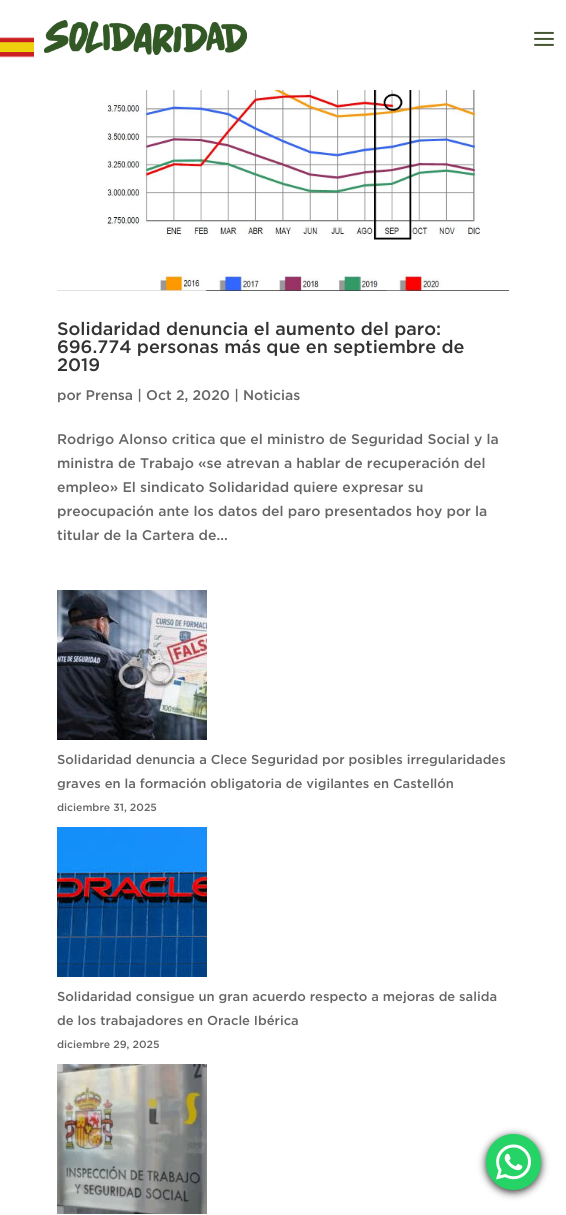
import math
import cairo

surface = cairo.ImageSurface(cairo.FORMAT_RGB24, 566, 1215)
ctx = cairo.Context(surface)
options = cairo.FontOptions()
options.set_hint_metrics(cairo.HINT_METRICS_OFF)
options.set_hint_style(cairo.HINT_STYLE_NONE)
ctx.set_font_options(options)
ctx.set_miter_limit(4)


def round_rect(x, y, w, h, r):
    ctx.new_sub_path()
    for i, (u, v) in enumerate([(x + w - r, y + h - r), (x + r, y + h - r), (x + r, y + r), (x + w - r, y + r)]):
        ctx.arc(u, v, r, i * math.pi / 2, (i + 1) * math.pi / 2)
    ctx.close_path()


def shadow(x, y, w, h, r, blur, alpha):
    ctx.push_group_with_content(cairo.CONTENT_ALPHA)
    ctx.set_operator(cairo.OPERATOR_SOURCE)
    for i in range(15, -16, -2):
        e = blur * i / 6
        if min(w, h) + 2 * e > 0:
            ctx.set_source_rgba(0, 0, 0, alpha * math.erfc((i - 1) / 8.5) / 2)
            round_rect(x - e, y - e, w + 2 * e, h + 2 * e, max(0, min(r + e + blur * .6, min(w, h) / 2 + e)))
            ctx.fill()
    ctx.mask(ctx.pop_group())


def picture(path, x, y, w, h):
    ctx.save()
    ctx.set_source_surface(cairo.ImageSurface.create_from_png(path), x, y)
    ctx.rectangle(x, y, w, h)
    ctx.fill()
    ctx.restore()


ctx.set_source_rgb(1, 1, 1)
ctx.paint()
picture("img1.png", 0, 37, 34, 21)
picture("img2.png", 44, 20, 203, 35)
picture("img3.png", 534, 31, 20, 15)
picture("img4.png", 57, 90, 452, 201)
ctx.select_font_face("Gotham Medium")
ctx.set_font_size(18)
ctx.set_source_rgb(0.2, 0.2, 0.2)
ctx.move_to(57, 335)
ctx.show_text("Solidaridad denuncia el aumento del paro:")
ctx.move_to(57, 353)
ctx.show_text("696.774 personas más que en septiembre de")
ctx.move_to(57, 371)
ctx.show_text("2019")
ctx.set_font_size(14)
ctx.set_source_rgb(0.4, 0.4, 0.4)
ctx.move_to(57, 400)
ctx.show_text("por Prensa | Oct 2, 2020 | Noticias")
ctx.move_to(57, 444)
ctx.show_text("Rodrigo Alonso critica que el ministro de Seguridad Social y la")
ctx.move_to(57, 468)
ctx.show_text("ministra de Trabajo «se atrevan a hablar de recuperación del")
ctx.move_to(57, 492)
ctx.show_text("empleo» El sindicato Solidaridad quiere expresar su")
ctx.move_to(57, 516)
ctx.show_text("preocupación ante los datos del paro presentados hoy por la")
ctx.move_to(57, 540)
ctx.show_text("titular de la Cartera de...")
picture("img5.png", 57, 590, 150, 150)
ctx.set_font_size(13)
ctx.move_to(57, 764)
ctx.show_text("Solidaridad denuncia a Clece Seguridad por posibles irregularidades")
ctx.move_to(57, 788)
ctx.show_text("graves en la formación obligatoria de vigilantes en Castellón")
ctx.set_font_size(10.5)
ctx.move_to(57, 811)
ctx.show_text("diciembre 31, 2025")
picture("img6.png", 57, 827, 150, 150)
ctx.set_font_size(13)
ctx.move_to(57, 1001)
ctx.show_text("Solidaridad consigue un gran acuerdo respecto a mejoras de salida")
ctx.move_to(57, 1025)
ctx.show_text("de los trabajadores en Oracle Ibérica")
ctx.set_font_size(10.5)
ctx.move_to(57, 1048)
ctx.show_text("diciembre 29, 2025")
picture("img7.png", 57, 1064, 150, 150)
ctx.set_source_rgb(0.204, 0.204, 0.204)
shadow(486, 1136, 55, 56, 27.5, 4, 1)
ctx.set_source_rgb(0.145, 0.827, 0.4)
round_rect(486, 1134, 55, 56, 27.5)
ctx.fill()
picture("img8.png", 496, 1144, 35, 36)
surface.write_to_png("page.png")
